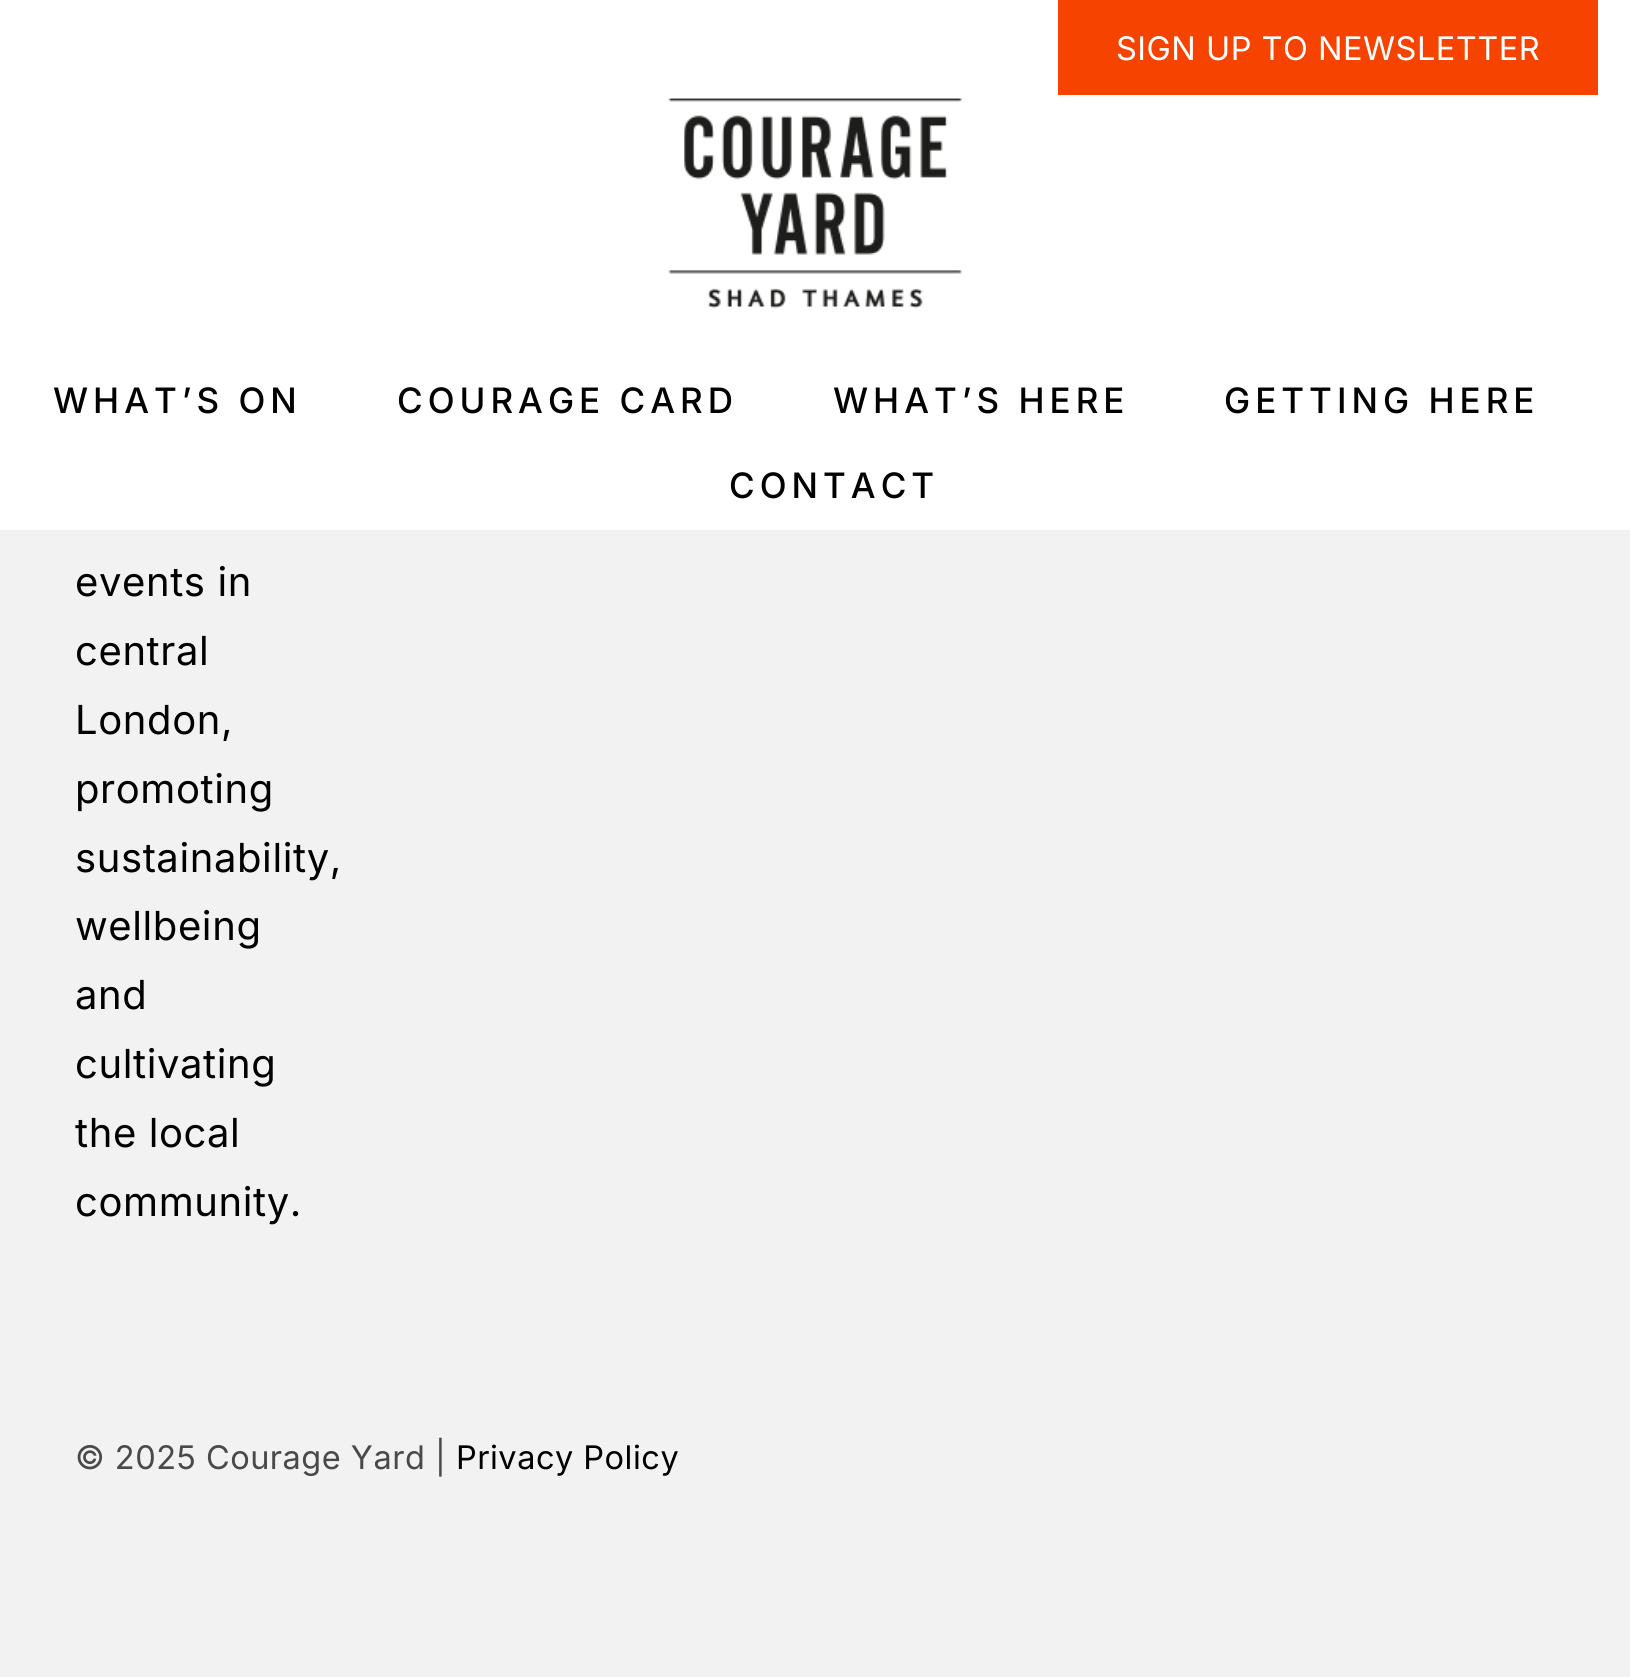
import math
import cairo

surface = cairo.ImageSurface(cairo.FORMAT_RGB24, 1630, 1677)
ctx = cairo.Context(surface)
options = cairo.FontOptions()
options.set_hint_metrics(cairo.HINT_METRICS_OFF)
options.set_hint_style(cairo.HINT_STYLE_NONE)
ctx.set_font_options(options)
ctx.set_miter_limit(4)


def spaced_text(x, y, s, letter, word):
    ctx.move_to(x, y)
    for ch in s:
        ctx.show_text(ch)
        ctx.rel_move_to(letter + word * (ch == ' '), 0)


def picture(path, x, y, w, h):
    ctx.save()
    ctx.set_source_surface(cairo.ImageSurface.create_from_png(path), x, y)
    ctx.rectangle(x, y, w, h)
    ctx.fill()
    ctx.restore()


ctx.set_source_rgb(0.949, 0.949, 0.949)
ctx.paint()
ctx.set_source_rgb(1, 1, 1)
ctx.rectangle(0, 0, 1630, 530)
ctx.fill()
ctx.set_source_rgb(0.965, 0.263, 0)
ctx.rectangle(1058, 0, 540, 95)
ctx.fill()
ctx.select_font_face("Inter")
ctx.set_font_size(32.5)
ctx.set_source_rgb(1, 1, 1)
spaced_text(1116, 60, "SIGN UP TO NEWSLETTER", 0.5, 0)
picture("img1.png", 668, 98, 294, 211)
ctx.select_font_face("Inter Medium")
ctx.set_font_size(35)
ctx.set_source_rgb(0, 0, 0)
spaced_text(53, 413, "WHAT’S ON", 5, 0)
spaced_text(397, 413, "COURAGE CARD", 5, 0)
spaced_text(833, 413, "WHAT’S HERE", 5, 0)
spaced_text(1224, 413, "GETTING HERE", 5, 0)
spaced_text(729, 498, "CONTACT", 5, 0)
ctx.select_font_face("Inter")
ctx.set_font_size(40)
spaced_text(75, 596, "events in", 0.6, 0)
spaced_text(75, 665, "central", 0.6, 0)
spaced_text(75, 734, "London,", 0.6, 0)
spaced_text(75, 803, "promoting", 0.6, 0)
spaced_text(75, 872, "sustainability,", 0.6, 0)
spaced_text(75, 940, "wellbeing", 0.6, 0)
spaced_text(75, 1009, "and", 0.6, 0)
spaced_text(75, 1078, "cultivating", 0.6, 0)
spaced_text(75, 1147, "the local", 0.6, 0)
spaced_text(75, 1216, "community.", 0.6, 0)
ctx.set_font_size(32.5)
ctx.set_source_rgb(0.286, 0.286, 0.286)
spaced_text(75, 1469, "© 2025 Courage Yard |", 0.5, 0)
ctx.set_source_rgb(0, 0, 0)
spaced_text(456, 1469, "Privacy Policy", 0.5, 0)
surface.write_to_png("page.png")
